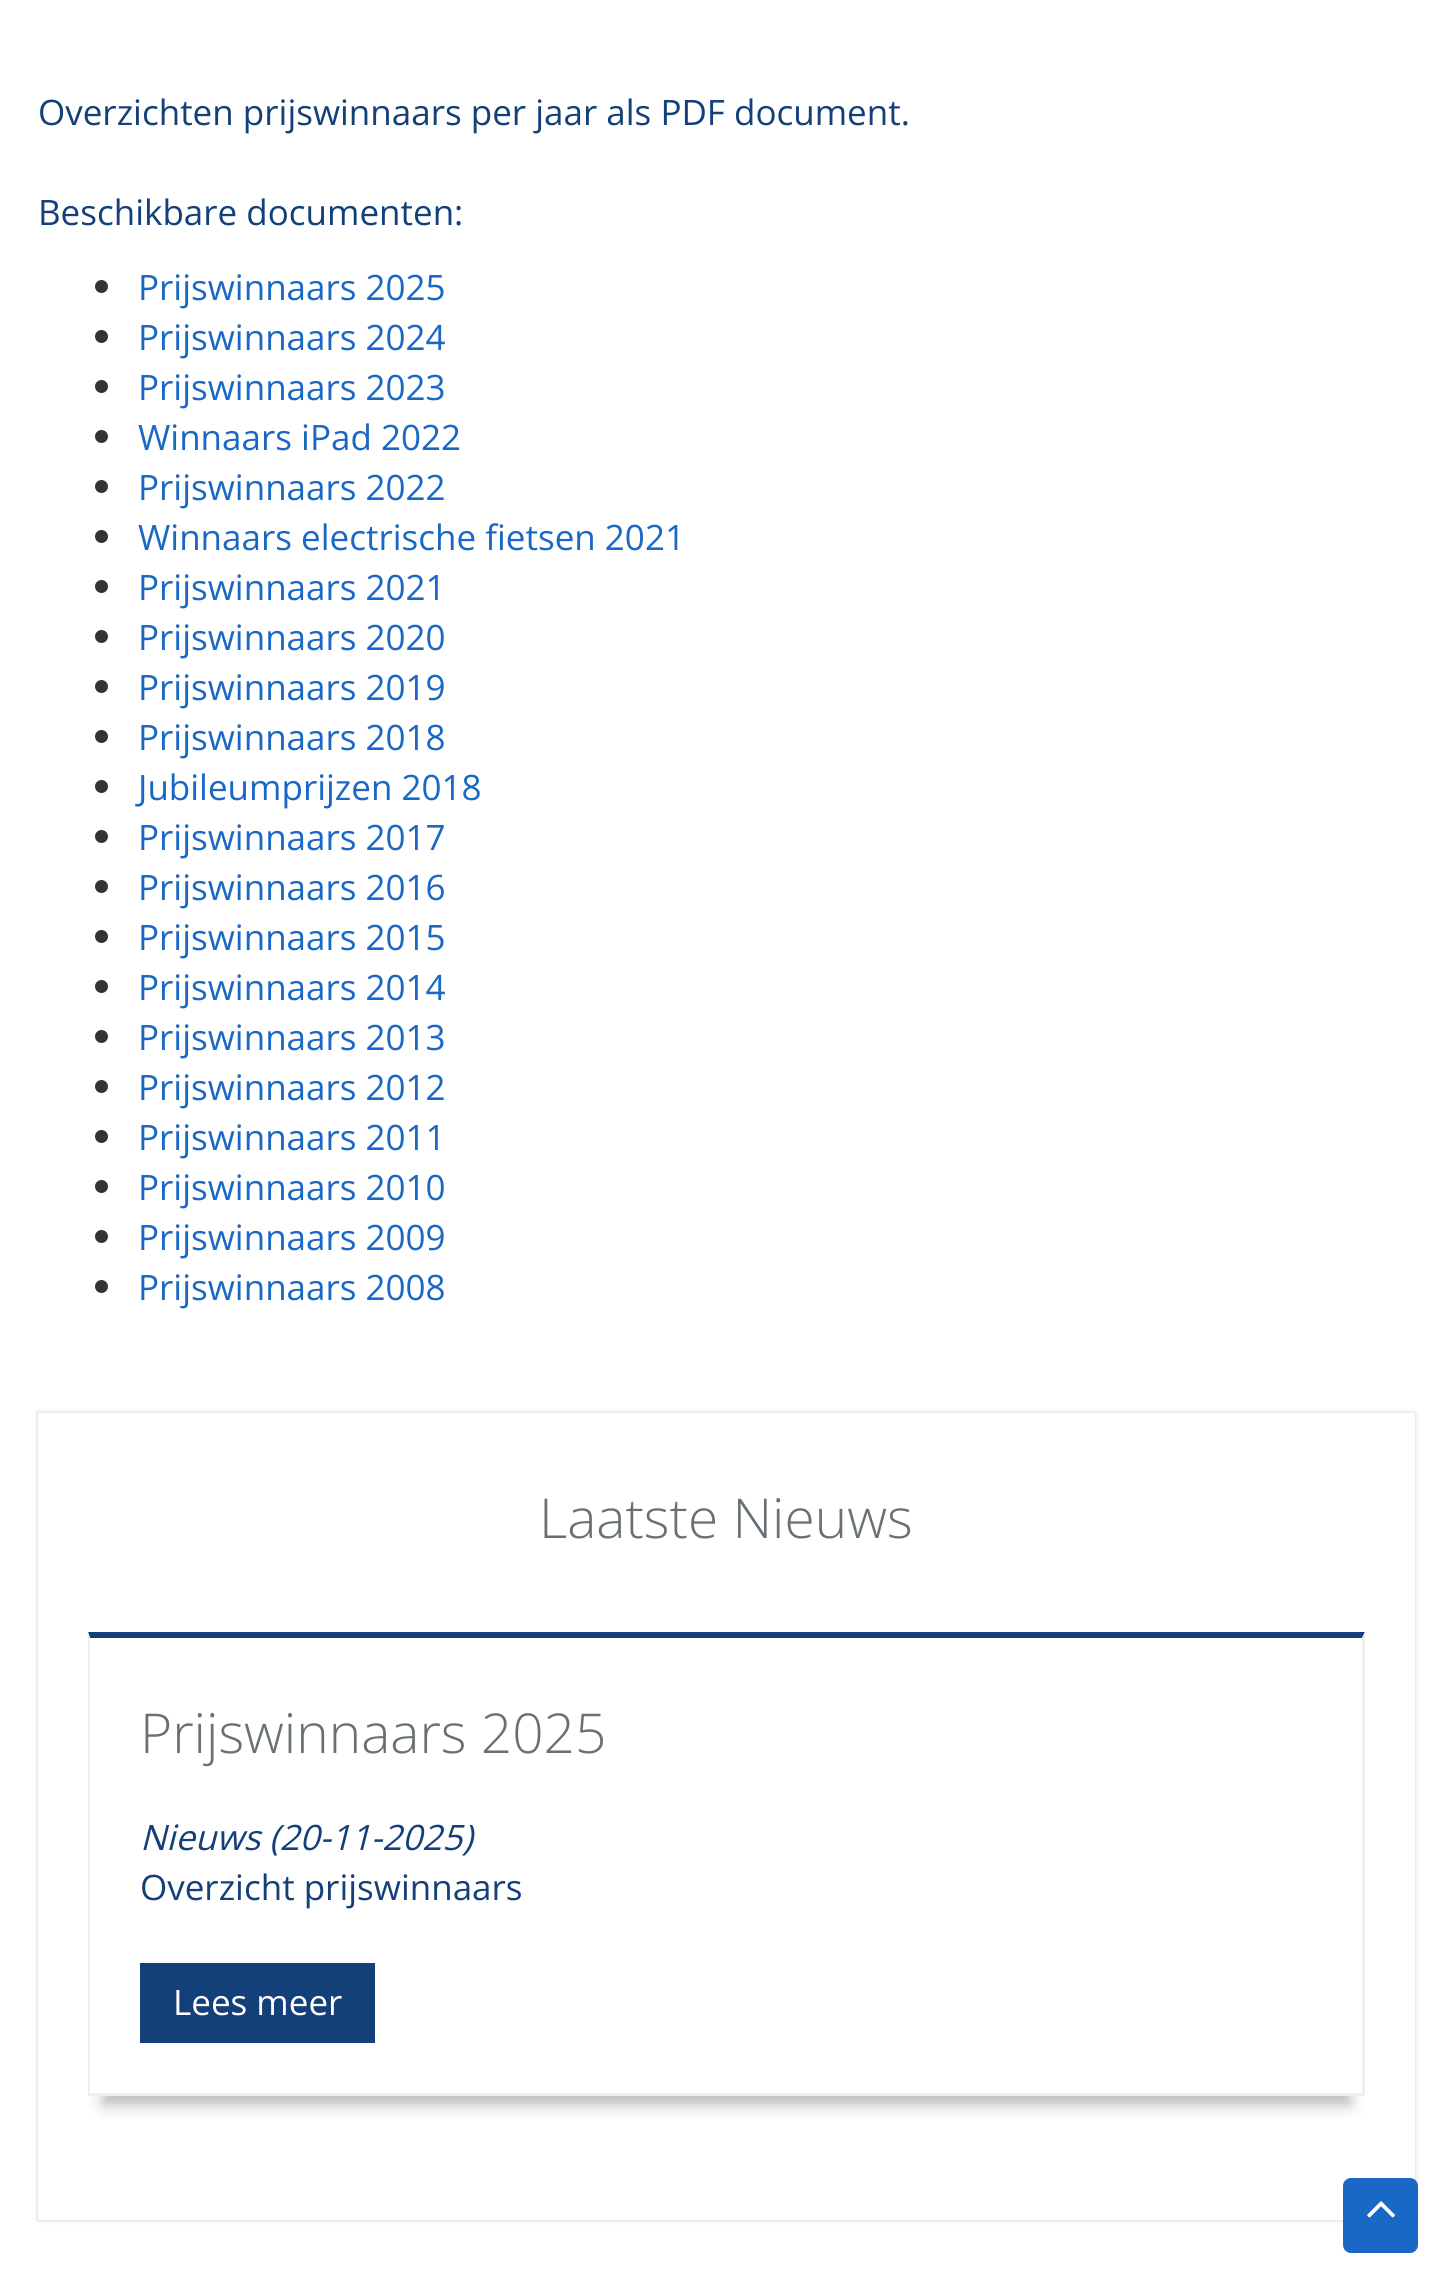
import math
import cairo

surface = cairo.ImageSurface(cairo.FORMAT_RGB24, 1451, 2278)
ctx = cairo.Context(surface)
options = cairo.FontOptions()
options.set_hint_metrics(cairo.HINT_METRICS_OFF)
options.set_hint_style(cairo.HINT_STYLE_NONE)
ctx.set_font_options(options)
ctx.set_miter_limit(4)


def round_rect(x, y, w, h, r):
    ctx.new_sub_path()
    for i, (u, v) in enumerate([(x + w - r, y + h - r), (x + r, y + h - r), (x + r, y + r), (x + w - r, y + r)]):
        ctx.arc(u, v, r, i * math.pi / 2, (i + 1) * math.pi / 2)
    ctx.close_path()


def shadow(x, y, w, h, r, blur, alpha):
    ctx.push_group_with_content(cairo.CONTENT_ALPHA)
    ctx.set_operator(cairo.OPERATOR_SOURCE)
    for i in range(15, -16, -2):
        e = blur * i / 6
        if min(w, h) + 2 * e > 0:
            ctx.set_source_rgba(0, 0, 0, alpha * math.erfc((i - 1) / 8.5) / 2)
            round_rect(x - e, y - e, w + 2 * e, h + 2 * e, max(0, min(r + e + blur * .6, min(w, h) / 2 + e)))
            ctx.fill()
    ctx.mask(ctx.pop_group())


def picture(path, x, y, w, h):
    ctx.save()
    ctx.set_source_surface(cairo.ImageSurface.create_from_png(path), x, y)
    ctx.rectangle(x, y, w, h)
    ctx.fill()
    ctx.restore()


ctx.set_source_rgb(1, 1, 1)
ctx.paint()
ctx.select_font_face("Open Sans")
ctx.set_font_size(35)
ctx.set_source_rgb(0.082, 0.251, 0.478)
ctx.move_to(38, 125)
ctx.show_text("Overzichten prijswinnaars per jaar als PDF document.")
ctx.move_to(38, 225)
ctx.show_text("Beschikbare documenten:")
ctx.set_source_rgb(0.2, 0.2, 0.2)
ctx.new_path()
ctx.arc(101.5, 286.5, 6.5, 0, 2 * math.pi)
ctx.fill()
ctx.set_source_rgb(0.102, 0.408, 0.773)
ctx.move_to(138, 300)
ctx.show_text("Prijswinnaars 2025")
ctx.set_source_rgb(0.2, 0.2, 0.2)
ctx.new_path()
ctx.arc(101.5, 336.5, 6.5, 0, 2 * math.pi)
ctx.fill()
ctx.set_source_rgb(0.102, 0.408, 0.773)
ctx.move_to(138, 350)
ctx.show_text("Prijswinnaars 2024")
ctx.set_source_rgb(0.2, 0.2, 0.2)
ctx.new_path()
ctx.arc(101.5, 386.5, 6.5, 0, 2 * math.pi)
ctx.fill()
ctx.set_source_rgb(0.102, 0.408, 0.773)
ctx.move_to(138, 400)
ctx.show_text("Prijswinnaars 2023")
ctx.set_source_rgb(0.2, 0.2, 0.2)
ctx.new_path()
ctx.arc(101.5, 436.5, 6.5, 0, 2 * math.pi)
ctx.fill()
ctx.set_source_rgb(0.102, 0.408, 0.773)
ctx.move_to(138, 450)
ctx.show_text("Winnaars iPad 2022")
ctx.set_source_rgb(0.2, 0.2, 0.2)
ctx.new_path()
ctx.arc(101.5, 486.5, 6.5, 0, 2 * math.pi)
ctx.fill()
ctx.set_source_rgb(0.102, 0.408, 0.773)
ctx.move_to(138, 500)
ctx.show_text("Prijswinnaars 2022")
ctx.set_source_rgb(0.2, 0.2, 0.2)
ctx.new_path()
ctx.arc(101.5, 536.5, 6.5, 0, 2 * math.pi)
ctx.fill()
ctx.set_source_rgb(0.102, 0.408, 0.773)
ctx.move_to(138, 550)
ctx.show_text("Winnaars electrische fietsen 2021")
ctx.set_source_rgb(0.2, 0.2, 0.2)
ctx.new_path()
ctx.arc(101.5, 586.5, 6.5, 0, 2 * math.pi)
ctx.fill()
ctx.set_source_rgb(0.102, 0.408, 0.773)
ctx.move_to(138, 600)
ctx.show_text("Prijswinnaars 2021")
ctx.set_source_rgb(0.2, 0.2, 0.2)
ctx.new_path()
ctx.arc(101.5, 636.5, 6.5, 0, 2 * math.pi)
ctx.fill()
ctx.set_source_rgb(0.102, 0.408, 0.773)
ctx.move_to(138, 650)
ctx.show_text("Prijswinnaars 2020")
ctx.set_source_rgb(0.2, 0.2, 0.2)
ctx.new_path()
ctx.arc(101.5, 686.5, 6.5, 0, 2 * math.pi)
ctx.fill()
ctx.set_source_rgb(0.102, 0.408, 0.773)
ctx.move_to(138, 700)
ctx.show_text("Prijswinnaars 2019")
ctx.set_source_rgb(0.2, 0.2, 0.2)
ctx.new_path()
ctx.arc(101.5, 736.5, 6.5, 0, 2 * math.pi)
ctx.fill()
ctx.set_source_rgb(0.102, 0.408, 0.773)
ctx.move_to(138, 750)
ctx.show_text("Prijswinnaars 2018")
ctx.set_source_rgb(0.2, 0.2, 0.2)
ctx.new_path()
ctx.arc(101.5, 786.5, 6.5, 0, 2 * math.pi)
ctx.fill()
ctx.set_source_rgb(0.102, 0.408, 0.773)
ctx.move_to(138, 800)
ctx.show_text("Jubileumprijzen 2018")
ctx.set_source_rgb(0.2, 0.2, 0.2)
ctx.new_path()
ctx.arc(101.5, 836.5, 6.5, 0, 2 * math.pi)
ctx.fill()
ctx.set_source_rgb(0.102, 0.408, 0.773)
ctx.move_to(138, 850)
ctx.show_text("Prijswinnaars 2017")
ctx.set_source_rgb(0.2, 0.2, 0.2)
ctx.new_path()
ctx.arc(101.5, 886.5, 6.5, 0, 2 * math.pi)
ctx.fill()
ctx.set_source_rgb(0.102, 0.408, 0.773)
ctx.move_to(138, 900)
ctx.show_text("Prijswinnaars 2016")
ctx.set_source_rgb(0.2, 0.2, 0.2)
ctx.new_path()
ctx.arc(101.5, 936.5, 6.5, 0, 2 * math.pi)
ctx.fill()
ctx.set_source_rgb(0.102, 0.408, 0.773)
ctx.move_to(138, 950)
ctx.show_text("Prijswinnaars 2015")
ctx.set_source_rgb(0.2, 0.2, 0.2)
ctx.new_path()
ctx.arc(101.5, 986.5, 6.5, 0, 2 * math.pi)
ctx.fill()
ctx.set_source_rgb(0.102, 0.408, 0.773)
ctx.move_to(138, 1000)
ctx.show_text("Prijswinnaars 2014")
ctx.set_source_rgb(0.2, 0.2, 0.2)
ctx.new_path()
ctx.arc(101.5, 1036.5, 6.5, 0, 2 * math.pi)
ctx.fill()
ctx.set_source_rgb(0.102, 0.408, 0.773)
ctx.move_to(138, 1050)
ctx.show_text("Prijswinnaars 2013")
ctx.set_source_rgb(0.2, 0.2, 0.2)
ctx.new_path()
ctx.arc(101.5, 1086.5, 6.5, 0, 2 * math.pi)
ctx.fill()
ctx.set_source_rgb(0.102, 0.408, 0.773)
ctx.move_to(138, 1100)
ctx.show_text("Prijswinnaars 2012")
ctx.set_source_rgb(0.2, 0.2, 0.2)
ctx.new_path()
ctx.arc(101.5, 1136.5, 6.5, 0, 2 * math.pi)
ctx.fill()
ctx.set_source_rgb(0.102, 0.408, 0.773)
ctx.move_to(138, 1150)
ctx.show_text("Prijswinnaars 2011")
ctx.set_source_rgb(0.2, 0.2, 0.2)
ctx.new_path()
ctx.arc(101.5, 1186.5, 6.5, 0, 2 * math.pi)
ctx.fill()
ctx.set_source_rgb(0.102, 0.408, 0.773)
ctx.move_to(138, 1200)
ctx.show_text("Prijswinnaars 2010")
ctx.set_source_rgb(0.2, 0.2, 0.2)
ctx.new_path()
ctx.arc(101.5, 1236.5, 6.5, 0, 2 * math.pi)
ctx.fill()
ctx.set_source_rgb(0.102, 0.408, 0.773)
ctx.move_to(138, 1250)
ctx.show_text("Prijswinnaars 2009")
ctx.set_source_rgb(0.2, 0.2, 0.2)
ctx.new_path()
ctx.arc(101.5, 1286.5, 6.5, 0, 2 * math.pi)
ctx.fill()
ctx.set_source_rgb(0.102, 0.408, 0.773)
ctx.move_to(138, 1300)
ctx.show_text("Prijswinnaars 2008")
ctx.save()
ctx.set_fill_rule(cairo.FILL_RULE_EVEN_ODD)
ctx.new_path()
ctx.move_to(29, 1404)
ctx.line_to(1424, 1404)
ctx.line_to(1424, 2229)
ctx.line_to(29, 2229)
ctx.close_path()
ctx.move_to(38, 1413)
ctx.line_to(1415, 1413)
ctx.line_to(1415, 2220)
ctx.line_to(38, 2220)
ctx.close_path()
ctx.clip()
ctx.set_source_rgb(0.8, 0.8, 0.8)
shadow(38, 1413, 1377, 807, 0, 2.5, 1)
ctx.restore()
ctx.select_font_face("Open Sans Light")
ctx.set_font_size(55)
ctx.set_source_rgb(0.408, 0.439, 0.455)
ctx.move_to(539, 1538)
ctx.show_text("Laatste Nieuws")
ctx.save()
ctx.rectangle(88, 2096, 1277, 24)
ctx.clip()
ctx.set_source_rgb(0.733, 0.733, 0.733)
shadow(103, 1673, 1247, 432, 0, 7.5, 1)
ctx.restore()
ctx.set_source_rgb(0.082, 0.251, 0.478)
ctx.new_path()
ctx.move_to(88, 1632)
ctx.line_to(1365, 1632)
ctx.line_to(1362, 1638)
ctx.line_to(90, 1638)
ctx.close_path()
ctx.fill()
ctx.set_source_rgb(0.933, 0.933, 0.933)
ctx.new_path()
ctx.move_to(1365, 1632)
ctx.line_to(1365, 2095)
ctx.line_to(1362, 2092)
ctx.line_to(1362, 1638)
ctx.close_path()
ctx.fill()
ctx.rectangle(88, 2093, 1277, 3)
ctx.fill()
ctx.new_path()
ctx.move_to(88, 2095)
ctx.line_to(88, 1632)
ctx.line_to(90, 1638)
ctx.line_to(90, 2092)
ctx.close_path()
ctx.fill()
ctx.set_source_rgb(0.408, 0.439, 0.455)
ctx.move_to(140, 1753)
ctx.show_text("Prijswinnaars 2025")
ctx.select_font_face("Open Sans", cairo.FONT_SLANT_ITALIC)
ctx.set_font_size(35)
ctx.set_source_rgb(0.082, 0.251, 0.478)
ctx.move_to(140, 1850)
ctx.show_text("Nieuws (20-11-2025)")
ctx.select_font_face("Open Sans")
ctx.move_to(140, 1900)
ctx.show_text("Overzicht prijswinnaars")
ctx.rectangle(140, 1963, 235, 80)
ctx.fill()
ctx.set_source_rgb(1, 1, 1)
ctx.move_to(173, 2015)
ctx.show_text("Lees meer")
ctx.set_source_rgb(0.102, 0.408, 0.773)
round_rect(1343, 2178, 75, 75, 8)
ctx.fill()
picture("img1.png", 1367, 2201, 28, 17)
surface.write_to_png("page.png")
